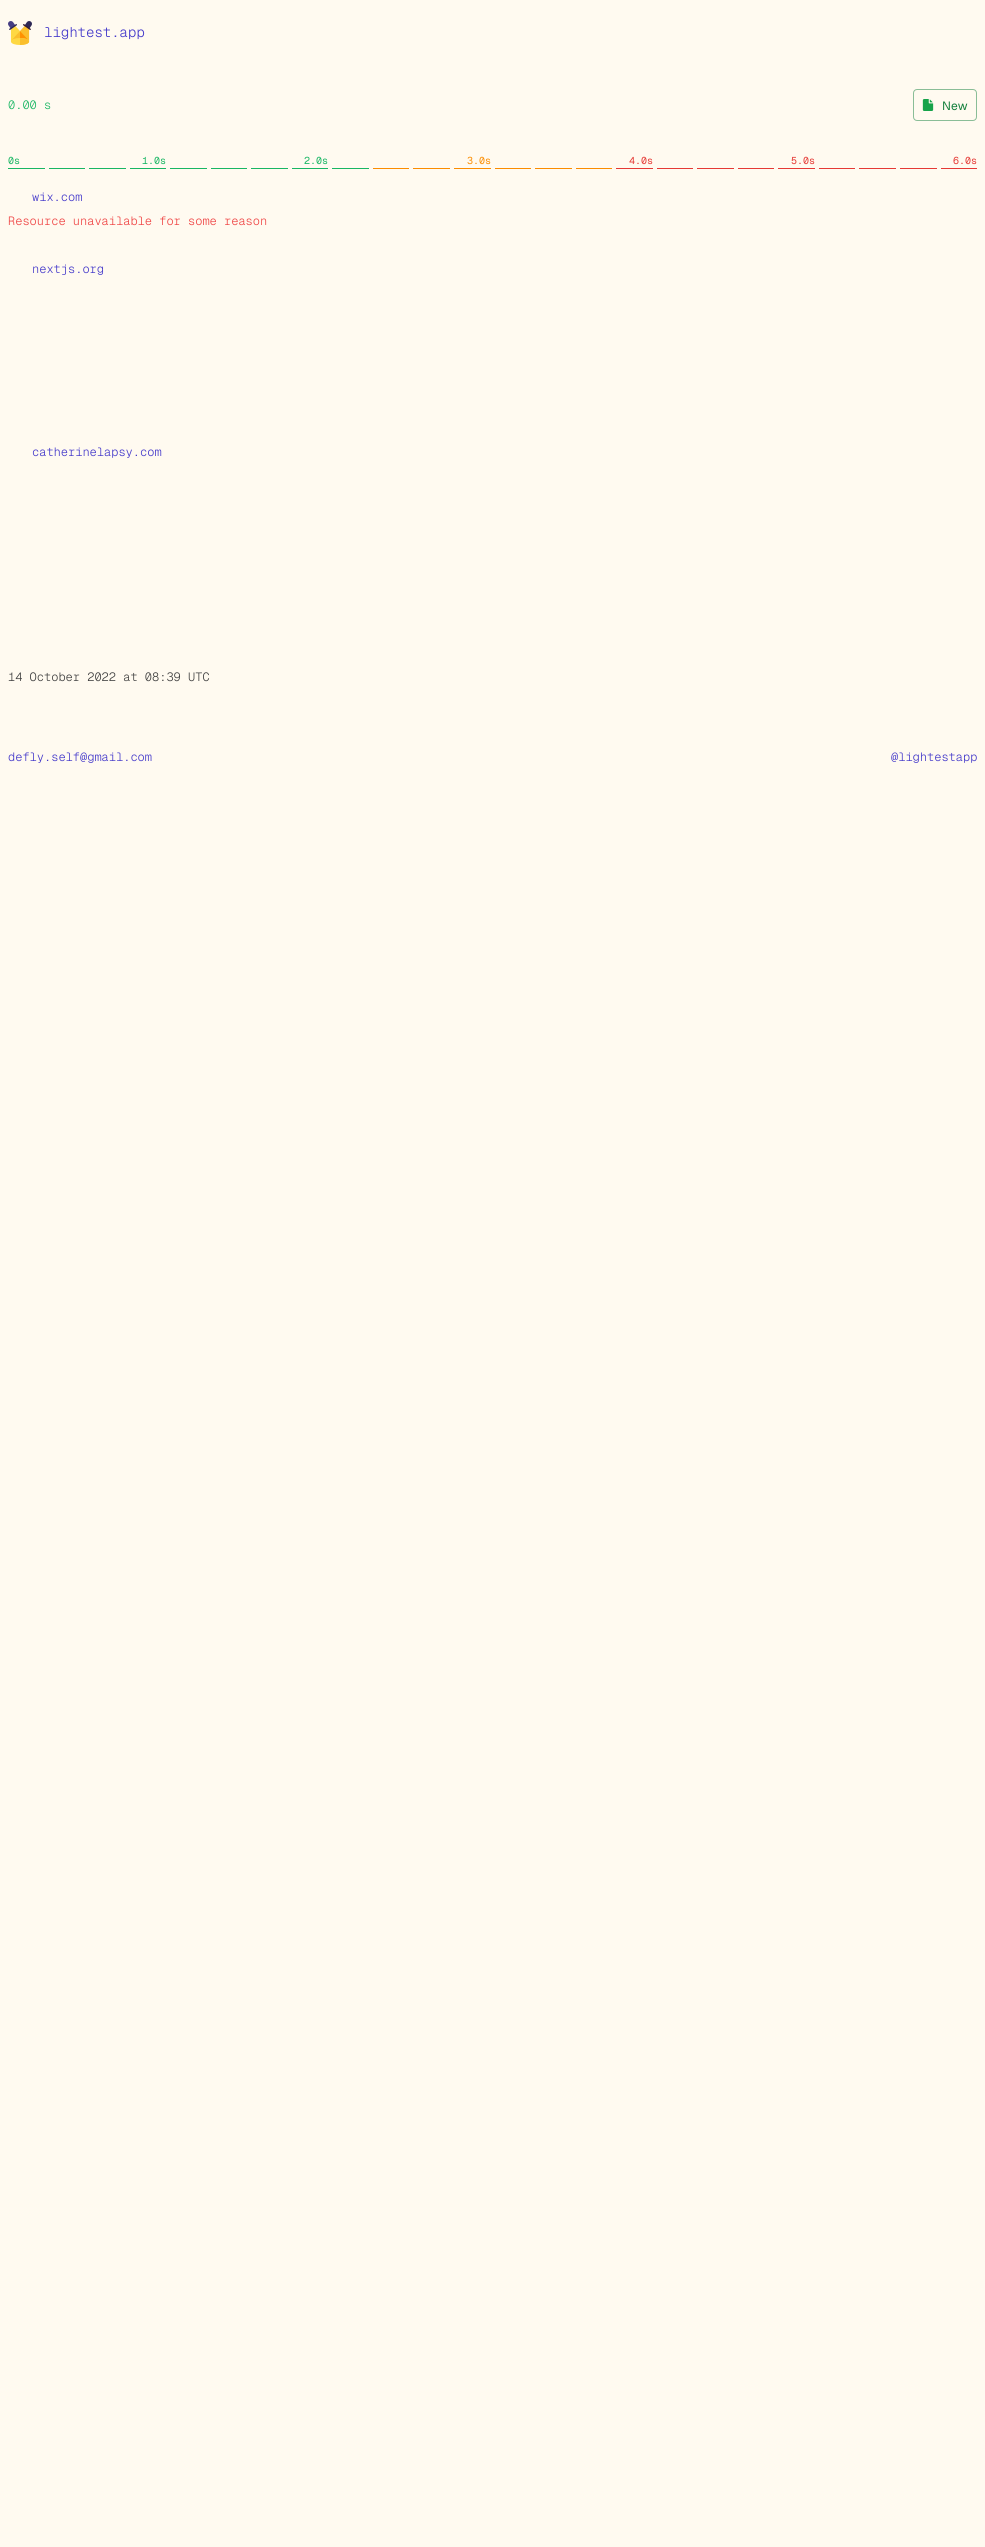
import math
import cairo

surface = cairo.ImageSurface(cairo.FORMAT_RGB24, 985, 2547)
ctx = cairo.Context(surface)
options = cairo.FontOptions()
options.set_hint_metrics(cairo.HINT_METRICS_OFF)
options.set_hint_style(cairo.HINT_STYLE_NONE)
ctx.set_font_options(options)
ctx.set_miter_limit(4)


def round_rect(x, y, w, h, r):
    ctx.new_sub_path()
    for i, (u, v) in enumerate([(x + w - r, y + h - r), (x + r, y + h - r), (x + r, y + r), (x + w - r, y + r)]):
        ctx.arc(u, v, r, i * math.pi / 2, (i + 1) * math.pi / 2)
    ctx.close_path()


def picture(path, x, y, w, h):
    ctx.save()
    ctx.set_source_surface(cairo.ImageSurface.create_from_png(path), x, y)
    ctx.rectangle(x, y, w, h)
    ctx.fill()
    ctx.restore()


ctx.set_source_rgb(1, 0.98, 0.941)
ctx.paint()
picture("img1.png", 8, 21, 24, 24)
ctx.select_font_face("Geist Mono Light")
ctx.set_font_size(14)
ctx.set_source_rgb(0.263, 0.22, 0.792)
ctx.move_to(44, 37)
ctx.show_text("lightest.app")
ctx.set_font_size(12)
ctx.set_source_rgb(0.094, 0.714, 0.388)
ctx.move_to(8, 109)
ctx.show_text("0.00 s")
round_rect(913.5, 89.5, 63, 31, 3.5)
ctx.set_source_rgb(0.541, 0.741, 0.592)
ctx.set_line_width(1)
ctx.stroke()
picture("img2.png", 922, 99, 12, 12)
ctx.select_font_face("Geist")
ctx.set_source_rgb(0.082, 0.502, 0.239)
ctx.move_to(942, 110)
ctx.show_text("New")
ctx.set_source_rgb(0.094, 0.714, 0.388)
ctx.rectangle(8, 168, 37, 1)
ctx.fill()
ctx.select_font_face("Geist Mono")
ctx.set_font_size(10)
ctx.move_to(8, 164)
ctx.show_text("0s")
ctx.rectangle(130, 168, 36, 1)
ctx.fill()
ctx.move_to(142, 164)
ctx.show_text("1.0s")
ctx.rectangle(292, 168, 36, 1)
ctx.fill()
ctx.move_to(304, 164)
ctx.show_text("2.0s")
ctx.set_source_rgb(0.984, 0.549, 0)
ctx.rectangle(454, 168, 37, 1)
ctx.fill()
ctx.move_to(467, 164)
ctx.show_text("3.0s")
ctx.set_source_rgb(0.898, 0.224, 0.208)
ctx.rectangle(616, 168, 37, 1)
ctx.fill()
ctx.move_to(629, 164)
ctx.show_text("4.0s")
ctx.rectangle(778, 168, 37, 1)
ctx.fill()
ctx.move_to(791, 164)
ctx.show_text("5.0s")
ctx.rectangle(941, 168, 36, 1)
ctx.fill()
ctx.move_to(953, 164)
ctx.show_text("6.0s")
ctx.set_source_rgb(0.094, 0.714, 0.388)
ctx.rectangle(49, 168, 36, 1)
ctx.fill()
ctx.rectangle(89, 168, 37, 1)
ctx.fill()
ctx.rectangle(170, 168, 37, 1)
ctx.fill()
ctx.rectangle(211, 168, 36, 1)
ctx.fill()
ctx.rectangle(251, 168, 37, 1)
ctx.fill()
ctx.rectangle(332, 168, 37, 1)
ctx.fill()
ctx.set_source_rgb(0.984, 0.549, 0)
ctx.rectangle(373, 168, 36, 1)
ctx.fill()
ctx.rectangle(413, 168, 37, 1)
ctx.fill()
ctx.rectangle(495, 168, 36, 1)
ctx.fill()
ctx.rectangle(535, 168, 37, 1)
ctx.fill()
ctx.rectangle(576, 168, 36, 1)
ctx.fill()
ctx.set_source_rgb(0.898, 0.224, 0.208)
ctx.rectangle(657, 168, 36, 1)
ctx.fill()
ctx.rectangle(697, 168, 37, 1)
ctx.fill()
ctx.rectangle(738, 168, 36, 1)
ctx.fill()
ctx.rectangle(819, 168, 36, 1)
ctx.fill()
ctx.rectangle(859, 168, 37, 1)
ctx.fill()
ctx.rectangle(900, 168, 37, 1)
ctx.fill()
ctx.select_font_face("Geist Mono Light")
ctx.set_font_size(12)
ctx.set_source_rgb(0.263, 0.22, 0.792)
ctx.move_to(32, 201)
ctx.show_text("wix.com")
ctx.set_source_rgb(0.937, 0.267, 0.267)
ctx.move_to(8, 225)
ctx.show_text("Resource unavailable for some reason")
ctx.set_source_rgb(0.263, 0.22, 0.792)
ctx.move_to(32, 273)
ctx.show_text("nextjs.org")
ctx.move_to(32, 456)
ctx.show_text("catherinelapsy.com")
ctx.set_source_rgb(0.251, 0.251, 0.251)
ctx.move_to(8, 681)
ctx.show_text("14 October 2022 at 08:39 UTC")
ctx.set_source_rgb(0.263, 0.22, 0.792)
ctx.move_to(8, 761)
ctx.show_text("defly.self@gmail.com")
ctx.move_to(891, 761)
ctx.show_text("@lightestapp")
surface.write_to_png("page.png")
